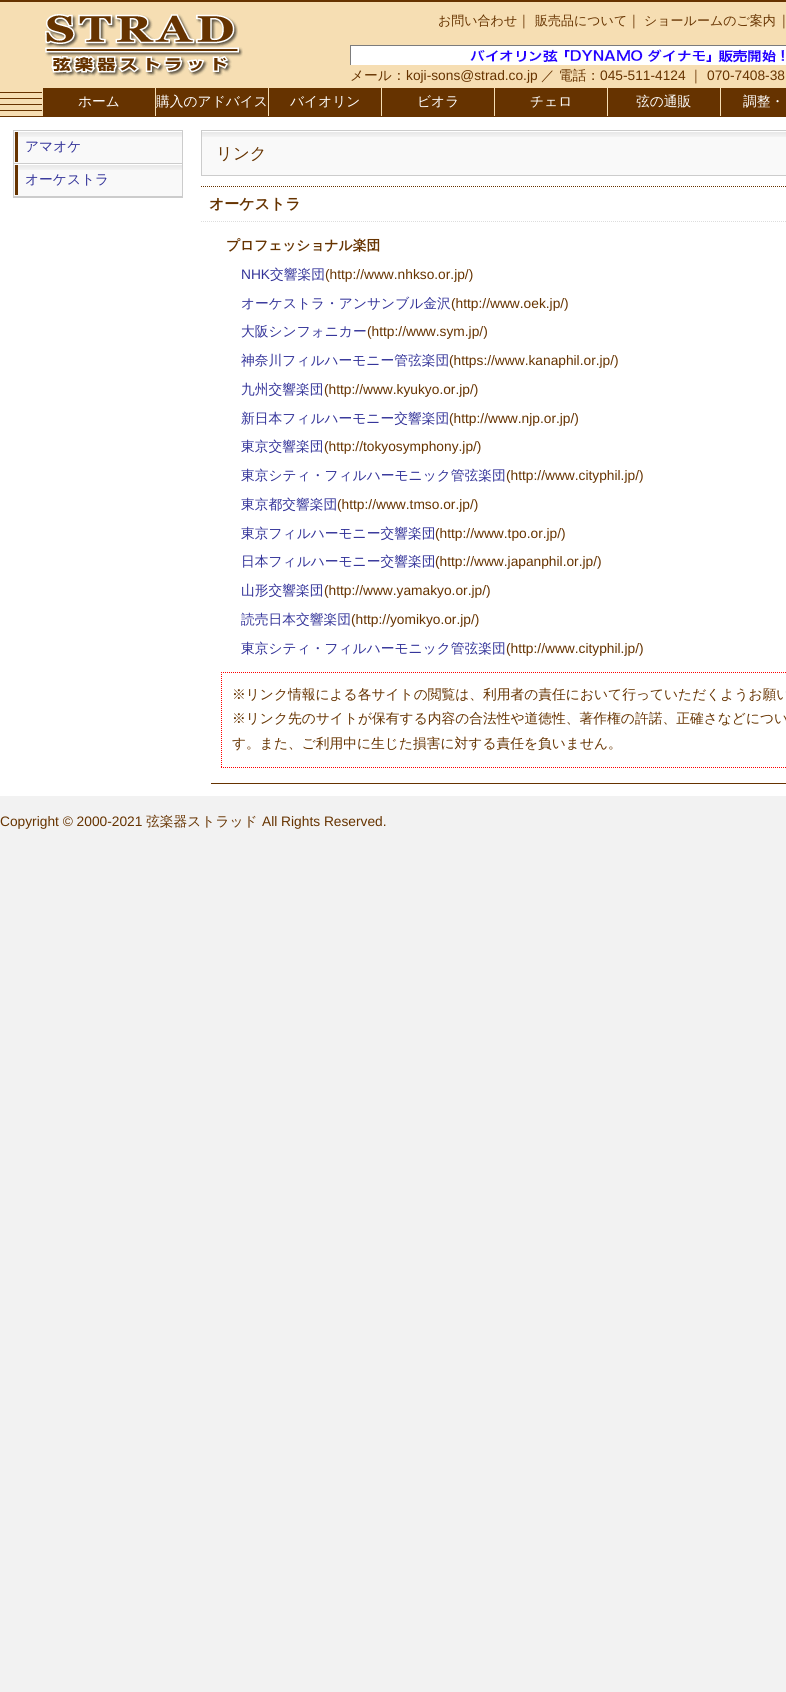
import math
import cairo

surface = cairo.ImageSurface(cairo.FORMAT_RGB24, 786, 1692)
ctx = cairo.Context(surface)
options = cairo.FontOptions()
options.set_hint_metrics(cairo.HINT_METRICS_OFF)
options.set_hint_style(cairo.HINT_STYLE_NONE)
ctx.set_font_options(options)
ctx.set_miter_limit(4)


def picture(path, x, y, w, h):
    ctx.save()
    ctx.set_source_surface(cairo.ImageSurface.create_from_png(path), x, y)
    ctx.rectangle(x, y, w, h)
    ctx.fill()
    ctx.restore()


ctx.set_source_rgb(0.949, 0.949, 0.949)
ctx.paint()
ctx.set_source_rgb(0.961, 0.871, 0.702)
ctx.rectangle(0, 2, 786, 114)
ctx.fill()
ctx.set_source_rgb(0.4, 0.2, 0)
ctx.rectangle(0, 0, 786, 2)
ctx.fill()
picture("img1.png", 45, 14, 198, 63)
ctx.select_font_face("WenQuanYi Zen Hei Medium")
ctx.set_font_size(13)
ctx.move_to(438, 25)
ctx.show_text("お問い合わせ")
ctx.set_font_size(13.75)
ctx.move_to(517, 25)
ctx.show_text("｜")
ctx.set_font_size(13)
ctx.move_to(535, 25)
ctx.show_text("販売品について")
ctx.set_font_size(13.75)
ctx.move_to(627, 25)
ctx.show_text("｜")
ctx.set_font_size(13)
ctx.move_to(644, 25)
ctx.show_text("ショールームのご案内")
ctx.set_font_size(13.75)
ctx.move_to(777, 25)
ctx.show_text("｜")
picture("img2.png", 350, 45, 436, 20)
ctx.move_to(350, 80)
ctx.show_text("メール：")
ctx.select_font_face("Liberation Sans")
ctx.move_to(406, 80)
ctx.show_text("koji-sons@strad.co.jp")
ctx.select_font_face("WenQuanYi Zen Hei Medium")
ctx.move_to(541, 80)
ctx.show_text("／ 電話：")
ctx.select_font_face("Liberation Sans")
ctx.move_to(600, 80)
ctx.show_text("045-511-4124")
ctx.select_font_face("WenQuanYi Zen Hei Medium")
ctx.move_to(689, 80)
ctx.show_text("｜")
ctx.select_font_face("Liberation Sans")
ctx.move_to(707, 80)
ctx.show_text("070-7408-38")
picture("img3.png", 0, 92, 42, 19)
ctx.rectangle(43, 88, 112, 28)
ctx.fill()
ctx.select_font_face("WenQuanYi Zen Hei Medium")
ctx.set_source_rgb(1, 1, 1)
ctx.move_to(78, 106)
ctx.show_text("ホーム")
ctx.set_source_rgb(0.4, 0.2, 0)
ctx.rectangle(156, 88, 112, 28)
ctx.fill()
ctx.set_source_rgb(1, 1, 1)
ctx.move_to(156, 106)
ctx.show_text("購入のアドバイス")
ctx.set_source_rgb(0.4, 0.2, 0)
ctx.rectangle(269, 88, 112, 28)
ctx.fill()
ctx.set_source_rgb(1, 1, 1)
ctx.move_to(290, 106)
ctx.show_text("バイオリン")
ctx.set_source_rgb(0.4, 0.2, 0)
ctx.rectangle(382, 88, 112, 28)
ctx.fill()
ctx.set_source_rgb(1, 1, 1)
ctx.move_to(417, 106)
ctx.show_text("ビオラ")
ctx.set_source_rgb(0.4, 0.2, 0)
ctx.rectangle(495, 88, 112, 28)
ctx.fill()
ctx.set_source_rgb(1, 1, 1)
ctx.move_to(530, 106)
ctx.show_text("チェロ")
ctx.set_source_rgb(0.4, 0.2, 0)
ctx.rectangle(608, 88, 112, 28)
ctx.fill()
ctx.set_source_rgb(1, 1, 1)
ctx.move_to(636, 106)
ctx.show_text("弦の通販")
ctx.set_source_rgb(0.4, 0.2, 0)
ctx.rectangle(721, 88, 65, 28)
ctx.fill()
ctx.set_source_rgb(1, 1, 1)
ctx.move_to(743, 106)
ctx.show_text("調整・")
ctx.rectangle(0, 117, 786, 679)
ctx.fill()
ctx.set_source_rgb(0.4, 0.2, 0)
ctx.rectangle(0, 116, 786, 1)
ctx.fill()
ctx.rectangle(13.5, 130.5, 169, 67)
ctx.set_source_rgb(0.8, 0.8, 0.8)
ctx.set_line_width(1)
ctx.stroke()
ctx.set_source_rgb(0.973, 0.973, 0.973)
ctx.rectangle(14, 137, 168, 26)
ctx.fill()
picture("img4.png", 14, 131, 168, 6)
ctx.set_source_rgb(0.8, 0.8, 0.8)
ctx.rectangle(14, 163, 168, 1)
ctx.fill()
ctx.set_source_rgb(0.4, 0.2, 0)
ctx.rectangle(15, 132, 3, 30)
ctx.fill()
ctx.set_source_rgb(0.2, 0.2, 0.6)
ctx.move_to(25, 151)
ctx.show_text("アマオケ")
ctx.set_source_rgb(0.973, 0.973, 0.973)
ctx.rectangle(14, 170, 168, 26)
ctx.fill()
picture("img4.png", 14, 164, 168, 6)
ctx.set_source_rgb(0.8, 0.8, 0.8)
ctx.rectangle(14, 196, 168, 1)
ctx.fill()
ctx.set_source_rgb(0.4, 0.2, 0)
ctx.rectangle(15, 165, 3, 30)
ctx.fill()
ctx.set_source_rgb(0.2, 0.2, 0.6)
ctx.move_to(25, 184)
ctx.show_text("オーケストラ")
ctx.set_source_rgb(0.973, 0.973, 0.973)
ctx.rectangle(202, 137, 584, 38)
ctx.fill()
picture("img5.png", 202, 131, 584, 6)
ctx.rectangle(201.5, 130.5, 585, 45)
ctx.set_source_rgb(0.8, 0.8, 0.8)
ctx.stroke()
ctx.set_font_size(16.5)
ctx.set_source_rgb(0.4, 0.2, 0)
ctx.move_to(216, 159)
ctx.show_text("リンク")
ctx.new_path()
ctx.move_to(201, 186.5)
ctx.line_to(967, 186.5)
ctx.set_dash([1, 1])
ctx.stroke()
ctx.new_path()
ctx.move_to(201, 221.5)
ctx.line_to(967, 221.5)
ctx.set_source_rgb(0.867, 0.867, 0.867)
ctx.stroke()
ctx.select_font_face("WenQuanYi Zen Hei", cairo.FONT_SLANT_NORMAL, cairo.FONT_WEIGHT_BOLD)
ctx.set_font_size(15)
ctx.set_source_rgb(0.4, 0.2, 0)
ctx.move_to(209, 209)
ctx.show_text("オーケストラ")
ctx.rectangle(211, 783, 575, 1)
ctx.fill()
ctx.set_font_size(13.75)
ctx.move_to(226, 250)
ctx.show_text("プロフェッショナル楽団")
ctx.select_font_face("Liberation Sans")
ctx.set_source_rgb(0.2, 0.2, 0.6)
ctx.move_to(241, 279)
ctx.show_text("NHK")
ctx.select_font_face("WenQuanYi Zen Hei Medium")
ctx.move_to(270, 279)
ctx.show_text("交響楽団")
ctx.select_font_face("Liberation Sans")
ctx.set_source_rgb(0.4, 0.2, 0)
ctx.move_to(325, 279)
ctx.show_text("(http://www.nhkso.or.jp/)")
ctx.select_font_face("WenQuanYi Zen Hei Medium")
ctx.set_source_rgb(0.2, 0.2, 0.6)
ctx.move_to(241, 308)
ctx.show_text("オーケストラ・アンサンブル金沢")
ctx.select_font_face("Liberation Sans")
ctx.set_source_rgb(0.4, 0.2, 0)
ctx.move_to(451, 308)
ctx.show_text("(http://www.oek.jp/)")
ctx.select_font_face("WenQuanYi Zen Hei Medium")
ctx.set_source_rgb(0.2, 0.2, 0.6)
ctx.move_to(241, 336)
ctx.show_text("大阪シンフォニカー")
ctx.select_font_face("Liberation Sans")
ctx.set_source_rgb(0.4, 0.2, 0)
ctx.move_to(367, 336)
ctx.show_text("(http://www.sym.jp/)")
ctx.select_font_face("WenQuanYi Zen Hei Medium")
ctx.set_source_rgb(0.2, 0.2, 0.6)
ctx.move_to(241, 365)
ctx.show_text("神奈川フィルハーモニー管弦楽団")
ctx.select_font_face("Liberation Sans")
ctx.set_source_rgb(0.4, 0.2, 0)
ctx.move_to(449, 365)
ctx.show_text("(https://www.kanaphil.or.jp/)")
ctx.select_font_face("WenQuanYi Zen Hei Medium")
ctx.set_source_rgb(0.2, 0.2, 0.6)
ctx.move_to(241, 394)
ctx.show_text("九州交響楽団")
ctx.select_font_face("Liberation Sans")
ctx.set_source_rgb(0.4, 0.2, 0)
ctx.move_to(324, 394)
ctx.show_text("(http://www.kyukyo.or.jp/)")
ctx.select_font_face("WenQuanYi Zen Hei Medium")
ctx.set_source_rgb(0.2, 0.2, 0.6)
ctx.move_to(241, 423)
ctx.show_text("新日本フィルハーモニー交響楽団")
ctx.select_font_face("Liberation Sans")
ctx.set_source_rgb(0.4, 0.2, 0)
ctx.move_to(449, 423)
ctx.show_text("(http://www.njp.or.jp/)")
ctx.select_font_face("WenQuanYi Zen Hei Medium")
ctx.set_source_rgb(0.2, 0.2, 0.6)
ctx.move_to(241, 451)
ctx.show_text("東京交響楽団")
ctx.select_font_face("Liberation Sans")
ctx.set_source_rgb(0.4, 0.2, 0)
ctx.move_to(324, 451)
ctx.show_text("(http://tokyosymphony.jp/)")
ctx.select_font_face("WenQuanYi Zen Hei Medium")
ctx.set_source_rgb(0.2, 0.2, 0.6)
ctx.move_to(241, 480)
ctx.show_text("東京シティ・フィルハーモニック管弦楽団")
ctx.select_font_face("Liberation Sans")
ctx.set_source_rgb(0.4, 0.2, 0)
ctx.move_to(506, 480)
ctx.show_text("(http://www.cityphil.jp/)")
ctx.select_font_face("WenQuanYi Zen Hei Medium")
ctx.set_source_rgb(0.2, 0.2, 0.6)
ctx.move_to(241, 509)
ctx.show_text("東京都交響楽団")
ctx.select_font_face("Liberation Sans")
ctx.set_source_rgb(0.4, 0.2, 0)
ctx.move_to(337, 509)
ctx.show_text("(http://www.tmso.or.jp/)")
ctx.select_font_face("WenQuanYi Zen Hei Medium")
ctx.set_source_rgb(0.2, 0.2, 0.6)
ctx.move_to(241, 538)
ctx.show_text("東京フィルハーモニー交響楽団")
ctx.select_font_face("Liberation Sans")
ctx.set_source_rgb(0.4, 0.2, 0)
ctx.move_to(435, 538)
ctx.show_text("(http://www.tpo.or.jp/)")
ctx.select_font_face("WenQuanYi Zen Hei Medium")
ctx.set_source_rgb(0.2, 0.2, 0.6)
ctx.move_to(241, 566)
ctx.show_text("日本フィルハーモニー交響楽団")
ctx.select_font_face("Liberation Sans")
ctx.set_source_rgb(0.4, 0.2, 0)
ctx.move_to(435, 566)
ctx.show_text("(http://www.japanphil.or.jp/)")
ctx.select_font_face("WenQuanYi Zen Hei Medium")
ctx.set_source_rgb(0.2, 0.2, 0.6)
ctx.move_to(241, 595)
ctx.show_text("山形交響楽団")
ctx.select_font_face("Liberation Sans")
ctx.set_source_rgb(0.4, 0.2, 0)
ctx.move_to(324, 595)
ctx.show_text("(http://www.yamakyo.or.jp/)")
ctx.select_font_face("WenQuanYi Zen Hei Medium")
ctx.set_source_rgb(0.2, 0.2, 0.6)
ctx.move_to(241, 624)
ctx.show_text("読売日本交響楽団")
ctx.select_font_face("Liberation Sans")
ctx.set_source_rgb(0.4, 0.2, 0)
ctx.move_to(351, 624)
ctx.show_text("(http://yomikyo.or.jp/)")
ctx.select_font_face("WenQuanYi Zen Hei Medium")
ctx.set_source_rgb(0.2, 0.2, 0.6)
ctx.move_to(241, 653)
ctx.show_text("東京シティ・フィルハーモニック管弦楽団")
ctx.select_font_face("Liberation Sans")
ctx.set_source_rgb(0.4, 0.2, 0)
ctx.move_to(506, 653)
ctx.show_text("(http://www.cityphil.jp/)")
ctx.new_path()
ctx.move_to(221, 672.5)
ctx.line_to(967, 672.5)
ctx.set_source_rgb(1, 0, 0)
ctx.stroke()
ctx.new_path()
ctx.move_to(221, 767.5)
ctx.line_to(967, 767.5)
ctx.stroke()
ctx.new_path()
ctx.move_to(221.5, 672)
ctx.line_to(221.5, 768)
ctx.stroke()
ctx.select_font_face("WenQuanYi Zen Hei Medium")
ctx.set_source_rgb(0.4, 0.2, 0)
ctx.move_to(232, 699)
ctx.show_text("※リンク情報による各サイトの閲覧は、利用者の責任において行っていただくようお願い")
ctx.move_to(232, 723)
ctx.show_text("※リンク先のサイトが保有する内容の合法性や道徳性、著作権の許諾、正確さなどについ")
ctx.move_to(232, 748)
ctx.show_text("す。また、ご利用中に生じた損害に対する責任を負いません。")
ctx.select_font_face("Liberation Sans")
ctx.move_to(0, 826)
ctx.show_text("Copyright © 2000-2021")
ctx.select_font_face("WenQuanYi Zen Hei Medium")
ctx.move_to(146, 826)
ctx.show_text("弦楽器ストラッド")
ctx.select_font_face("Liberation Sans")
ctx.move_to(262, 826)
ctx.show_text("All Rights Reserved.")
surface.write_to_png("page.png")
